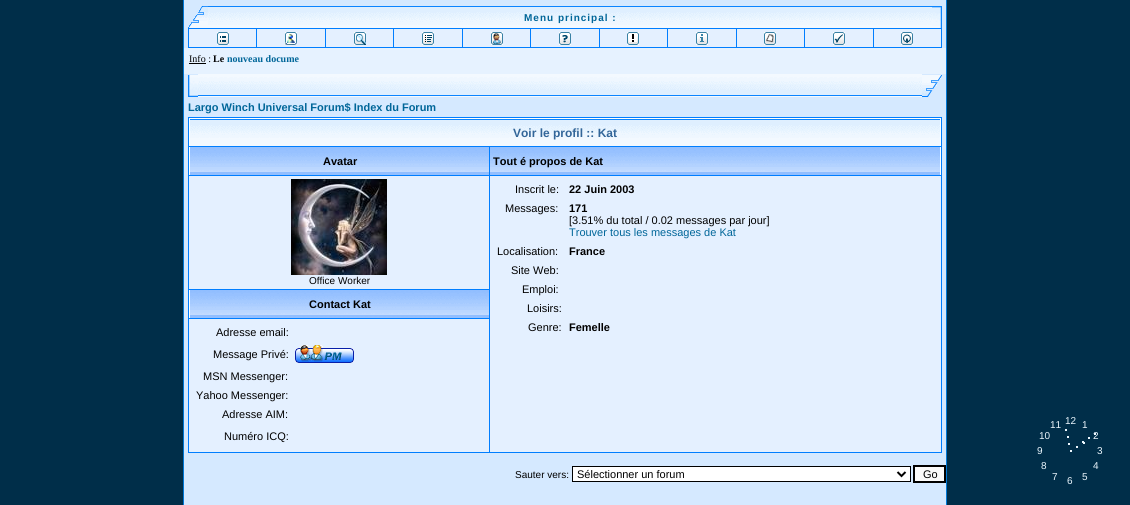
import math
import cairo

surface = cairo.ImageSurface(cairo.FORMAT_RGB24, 1130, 505)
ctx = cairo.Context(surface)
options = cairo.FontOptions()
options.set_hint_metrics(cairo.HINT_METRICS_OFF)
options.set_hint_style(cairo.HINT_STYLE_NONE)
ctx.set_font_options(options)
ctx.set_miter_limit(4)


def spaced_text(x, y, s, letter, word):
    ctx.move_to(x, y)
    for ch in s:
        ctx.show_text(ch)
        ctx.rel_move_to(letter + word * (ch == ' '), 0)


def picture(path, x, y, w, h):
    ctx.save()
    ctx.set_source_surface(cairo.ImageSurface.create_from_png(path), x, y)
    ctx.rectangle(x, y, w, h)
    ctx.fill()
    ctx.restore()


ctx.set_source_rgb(0, 0.18, 0.286)
ctx.paint()
ctx.set_source_rgb(0.835, 0.914, 1)
ctx.rectangle(183.5, -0.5, 763, 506)
ctx.fill_preserve()
ctx.set_source_rgb(0, 0.471, 0.839)
ctx.set_line_width(1)
ctx.stroke()
picture("img1.png", 188, 6, 20, 22)
picture("img2.png", 208, 6, 724, 22)
ctx.select_font_face("Liberation Sans", cairo.FONT_SLANT_NORMAL, cairo.FONT_WEIGHT_BOLD)
ctx.set_font_size(10)
ctx.set_source_rgb(0, 0.4, 0.6)
spaced_text(524, 21, "Menu principal :", 1, 0)
picture("img3.png", 932, 6, 10, 22)
ctx.set_source_rgb(0, 0.494, 1)
ctx.rectangle(188, 28, 754, 20)
ctx.fill()
ctx.set_source_rgb(0.894, 0.941, 1)
ctx.rectangle(189, 29, 67, 18)
ctx.fill()
picture("img4.png", 217, 32, 12, 13)
ctx.rectangle(257, 29, 68, 18)
ctx.fill()
picture("img5.png", 285, 32, 12, 13)
ctx.rectangle(326, 29, 67, 18)
ctx.fill()
picture("img6.png", 354, 32, 12, 13)
ctx.rectangle(394, 29, 68, 18)
ctx.fill()
picture("img7.png", 422, 32, 12, 13)
ctx.rectangle(463, 29, 67, 18)
ctx.fill()
picture("img8.png", 491, 32, 12, 13)
ctx.rectangle(531, 29, 68, 18)
ctx.fill()
picture("img9.png", 559, 32, 12, 13)
ctx.rectangle(600, 29, 67, 18)
ctx.fill()
picture("img10.png", 627, 32, 12, 13)
ctx.rectangle(668, 29, 68, 18)
ctx.fill()
picture("img11.png", 696, 32, 12, 13)
ctx.rectangle(737, 29, 67, 18)
ctx.fill()
picture("img12.png", 764, 32, 12, 13)
ctx.rectangle(805, 29, 68, 18)
ctx.fill()
picture("img13.png", 833, 32, 12, 13)
ctx.rectangle(874, 29, 67, 18)
ctx.fill()
picture("img14.png", 901, 32, 12, 13)
ctx.set_source_rgb(0.902, 0.949, 1)
ctx.rectangle(184, 48, 762, 26)
ctx.fill()
ctx.select_font_face("Liberation Serif")
ctx.set_source_rgb(0, 0, 0)
ctx.move_to(189, 62)
ctx.show_text("Info :")
ctx.rectangle(189, 63, 17, 1)
ctx.fill()
ctx.select_font_face("Liberation Serif", cairo.FONT_SLANT_NORMAL, cairo.FONT_WEIGHT_BOLD)
ctx.move_to(213, 62)
ctx.show_text("Le")
ctx.set_source_rgb(0, 0.4, 0.6)
ctx.move_to(227, 62)
ctx.show_text("nouveau docume")
picture("img15.png", 188, 75, 10, 22)
picture("img16.png", 198, 74, 724, 23)
picture("img17.png", 922, 75, 20, 22)
ctx.select_font_face("Liberation Sans", cairo.FONT_SLANT_NORMAL, cairo.FONT_WEIGHT_BOLD)
ctx.set_font_size(11)
ctx.move_to(188, 111)
ctx.show_text("Largo Winch Universal Forum$ Index du Forum")
ctx.set_source_rgb(0, 0.494, 1)
ctx.rectangle(188, 117, 754, 336)
ctx.fill()
picture("img18.png", 190, 119, 750, 27)
ctx.set_source_rgb(1, 1, 1)
ctx.rectangle(189, 118, 752, 1)
ctx.fill()
ctx.rectangle(940, 118, 1, 28)
ctx.fill()
ctx.rectangle(189, 118, 1, 28)
ctx.fill()
ctx.set_font_size(12)
ctx.set_source_rgb(0.2, 0.4, 0.6)
ctx.move_to(513, 137)
ctx.show_text("Voir le profil :: Kat")
picture("img19.png", 190, 147, 299, 28)
ctx.set_source_rgb(1, 1, 1)
ctx.rectangle(189, 147, 1, 28)
ctx.fill()
ctx.set_font_size(11)
ctx.set_source_rgb(0, 0, 0)
ctx.move_to(323, 165)
ctx.show_text("Avatar")
picture("img20.png", 490, 147, 450, 28)
ctx.set_source_rgb(1, 1, 1)
ctx.rectangle(940, 147, 1, 28)
ctx.fill()
ctx.set_source_rgb(0, 0, 0)
ctx.move_to(493, 165)
ctx.show_text("Tout é propos de Kat")
ctx.set_source_rgb(0.894, 0.941, 1)
ctx.rectangle(189, 176, 300, 113)
ctx.fill()
picture("img21.png", 291, 179, 96, 96)
ctx.select_font_face("Liberation Sans")
ctx.set_font_size(10)
ctx.set_source_rgb(0, 0, 0)
ctx.move_to(309, 284)
ctx.show_text("Office Worker")
ctx.set_source_rgb(0.894, 0.941, 1)
ctx.rectangle(490, 176, 451, 276)
ctx.fill()
ctx.set_font_size(11)
ctx.set_source_rgb(0, 0, 0)
ctx.move_to(515, 193)
ctx.show_text("Inscrit le:")
ctx.select_font_face("Liberation Sans", cairo.FONT_SLANT_NORMAL, cairo.FONT_WEIGHT_BOLD)
ctx.move_to(569, 193)
ctx.show_text("22 Juin 2003")
ctx.select_font_face("Liberation Sans")
ctx.move_to(505, 212)
ctx.show_text("Messages:")
ctx.select_font_face("Liberation Sans", cairo.FONT_SLANT_NORMAL, cairo.FONT_WEIGHT_BOLD)
ctx.move_to(569, 212)
ctx.show_text("171")
ctx.select_font_face("Liberation Sans")
ctx.move_to(569, 224)
ctx.show_text("[3.51% du total / 0.02 messages par jour]")
ctx.set_source_rgb(0, 0.4, 0.6)
ctx.move_to(569, 236)
ctx.show_text("Trouver tous les messages de Kat")
ctx.set_source_rgb(0, 0, 0)
ctx.move_to(497, 255)
ctx.show_text("Localisation:")
ctx.select_font_face("Liberation Sans", cairo.FONT_SLANT_NORMAL, cairo.FONT_WEIGHT_BOLD)
ctx.move_to(569, 255)
ctx.show_text("France")
ctx.select_font_face("Liberation Sans")
ctx.move_to(511, 274)
ctx.show_text("Site Web:")
ctx.move_to(522, 293)
ctx.show_text("Emploi:")
ctx.move_to(527, 312)
ctx.show_text("Loisirs:")
ctx.move_to(528, 331)
ctx.show_text("Genre:")
ctx.select_font_face("Liberation Sans", cairo.FONT_SLANT_NORMAL, cairo.FONT_WEIGHT_BOLD)
ctx.move_to(569, 331)
ctx.show_text("Femelle")
picture("img19.png", 190, 290, 299, 28)
ctx.set_source_rgb(1, 1, 1)
ctx.rectangle(189, 290, 1, 28)
ctx.fill()
ctx.set_source_rgb(0, 0, 0)
ctx.move_to(309, 308)
ctx.show_text("Contact Kat")
ctx.set_source_rgb(0.894, 0.941, 1)
ctx.rectangle(189, 319, 300, 133)
ctx.fill()
ctx.select_font_face("Liberation Sans")
ctx.set_source_rgb(0, 0, 0)
ctx.move_to(216, 336)
ctx.show_text("Adresse email:")
ctx.move_to(213, 358)
ctx.show_text("Message Privé:")
picture("img22.png", 295, 345, 59, 18)
ctx.move_to(203, 380)
ctx.show_text("MSN Messenger:")
ctx.move_to(196, 399)
ctx.show_text("Yahoo Messenger:")
ctx.move_to(222, 418)
ctx.show_text("Adresse AIM:")
ctx.move_to(224, 440)
ctx.show_text("Numéro ICQ:")
ctx.set_font_size(10)
ctx.move_to(515, 478)
ctx.show_text("Sauter vers:")
ctx.set_source_rgb(1, 1, 1)
ctx.rectangle(572.5, 466.5, 338, 15)
ctx.fill_preserve()
ctx.set_source_rgb(0, 0, 0)
ctx.stroke()
ctx.new_path()
ctx.move_to(897.5, 472)
ctx.line_to(901.5, 476)
ctx.line_to(905.5, 472)
ctx.set_line_width(2)
ctx.stroke()
ctx.set_font_size(11)
ctx.move_to(577, 478)
ctx.show_text("Sélectionner un forum")
ctx.set_source_rgb(0.98, 0.98, 0.98)
ctx.rectangle(914, 466, 31, 16)
ctx.fill_preserve()
ctx.set_source_rgb(0, 0, 0)
ctx.stroke()
ctx.move_to(923, 478)
ctx.show_text("Go")
ctx.set_font_size(10)
ctx.set_source_rgb(0.918, 0.961, 0.992)
ctx.move_to(1050, 428)
ctx.show_text("11")
ctx.move_to(1065, 424)
ctx.show_text("12")
ctx.move_to(1082, 428)
ctx.show_text("1")
ctx.rectangle(1065, 429, 2, 2)
ctx.fill()
ctx.move_to(1039, 439)
ctx.show_text("10")
ctx.move_to(1093, 439)
ctx.show_text("2")
ctx.rectangle(1094, 433, 2, 2)
ctx.fill()
ctx.rectangle(1067, 436, 2, 2)
ctx.fill()
ctx.rectangle(1088, 437, 2, 2)
ctx.fill()
ctx.rectangle(1083, 442, 2, 2)
ctx.fill()
ctx.rectangle(1082, 441, 2, 2)
ctx.fill()
ctx.rectangle(1068, 443, 2, 2)
ctx.fill()
ctx.move_to(1037, 454)
ctx.show_text("9")
ctx.rectangle(1070, 450, 2, 2)
ctx.fill()
ctx.rectangle(1076, 446, 2, 2)
ctx.fill()
ctx.move_to(1097, 454)
ctx.show_text("3")
ctx.move_to(1041, 469)
ctx.show_text("8")
ctx.move_to(1093, 469)
ctx.show_text("4")
ctx.move_to(1052, 480)
ctx.show_text("7")
ctx.move_to(1067, 484)
ctx.show_text("6")
ctx.move_to(1082, 480)
ctx.show_text("5")
surface.write_to_png("page.png")
